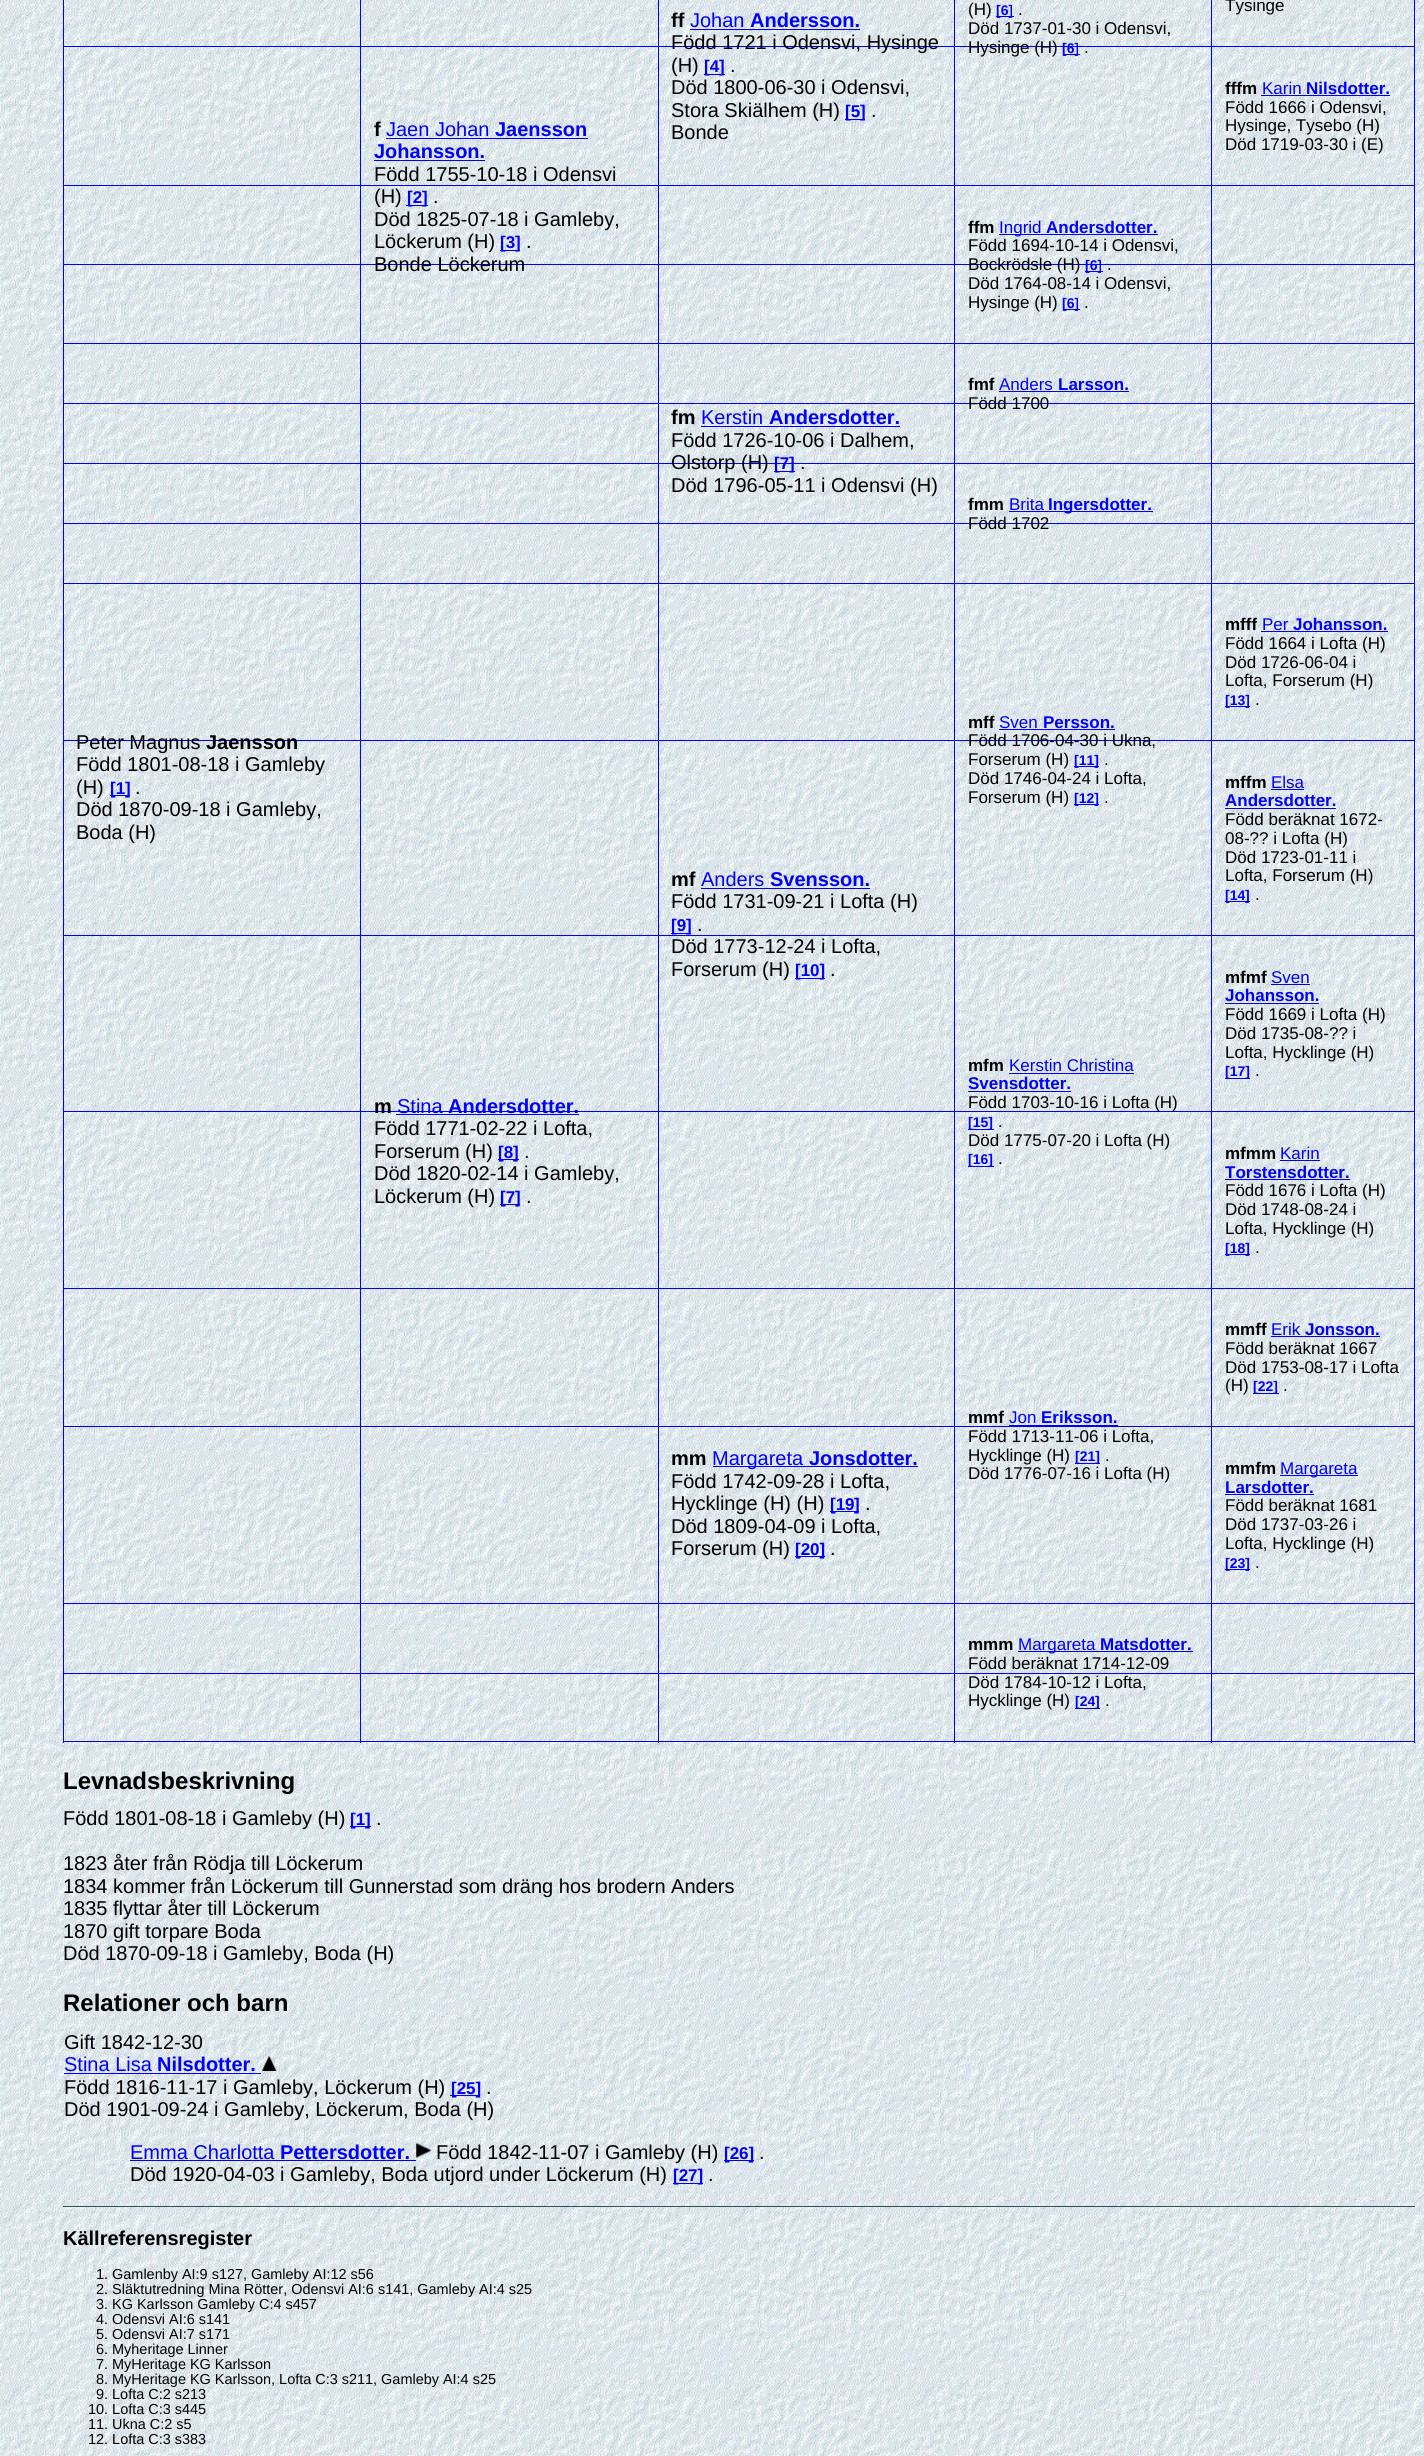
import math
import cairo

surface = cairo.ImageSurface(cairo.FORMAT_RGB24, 1424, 2456)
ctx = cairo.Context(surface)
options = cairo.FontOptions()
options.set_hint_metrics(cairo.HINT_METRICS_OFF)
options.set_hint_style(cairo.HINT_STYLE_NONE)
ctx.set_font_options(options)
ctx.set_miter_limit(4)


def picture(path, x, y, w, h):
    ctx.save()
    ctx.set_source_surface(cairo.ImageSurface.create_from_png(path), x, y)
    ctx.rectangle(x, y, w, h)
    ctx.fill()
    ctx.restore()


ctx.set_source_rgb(1, 1, 1)
ctx.paint()
picture("img1.png", 0, 0, 1424, 2456)
ctx.set_source_rgb(0, 0, 1)
ctx.rectangle(1414, 0, 1, 1743)
ctx.fill()
ctx.rectangle(63, 1741, 1352, 1)
ctx.fill()
ctx.rectangle(63, 0, 1, 1743)
ctx.fill()
ctx.rectangle(63, 1673, 1352, 1)
ctx.fill()
ctx.rectangle(63, 46, 1352, 1)
ctx.fill()
ctx.rectangle(63, 185, 1352, 1)
ctx.fill()
ctx.rectangle(63, 264, 1352, 1)
ctx.fill()
ctx.rectangle(63, 343, 1352, 1)
ctx.fill()
ctx.rectangle(63, 403, 1352, 1)
ctx.fill()
ctx.rectangle(63, 463, 1352, 1)
ctx.fill()
ctx.rectangle(63, 523, 1352, 1)
ctx.fill()
ctx.rectangle(63, 583, 1352, 1)
ctx.fill()
ctx.rectangle(63, 740, 1352, 1)
ctx.fill()
ctx.rectangle(63, 935, 1352, 1)
ctx.fill()
ctx.rectangle(63, 1111, 1352, 1)
ctx.fill()
ctx.rectangle(63, 1288, 1352, 1)
ctx.fill()
ctx.rectangle(63, 1426, 1352, 1)
ctx.fill()
ctx.rectangle(63, 1603, 1352, 1)
ctx.fill()
ctx.rectangle(1211, 0, 1, 1743)
ctx.fill()
ctx.select_font_face("Liberation Sans", cairo.FONT_SLANT_NORMAL, cairo.FONT_WEIGHT_BOLD)
ctx.set_font_size(20)
ctx.set_source_rgb(0, 0, 0)
ctx.move_to(671, 27)
ctx.show_text("ff")
ctx.select_font_face("Liberation Sans")
ctx.set_source_rgb(0, 0, 1)
ctx.move_to(690, 27)
ctx.show_text("Johan")
ctx.rectangle(690, 29, 170, 1)
ctx.fill()
ctx.select_font_face("Liberation Sans", cairo.FONT_SLANT_NORMAL, cairo.FONT_WEIGHT_BOLD)
ctx.move_to(750, 27)
ctx.show_text("Andersson.")
ctx.select_font_face("Liberation Sans")
ctx.set_source_rgb(0, 0, 0)
ctx.move_to(671, 49)
ctx.show_text("Född 1721 i Odensvi, Hysinge")
ctx.move_to(671, 72)
ctx.show_text("(H)")
ctx.set_source_rgb(0, 0, 1)
ctx.rectangle(704, 74, 21, 1)
ctx.fill()
ctx.select_font_face("Liberation Sans", cairo.FONT_SLANT_NORMAL, cairo.FONT_WEIGHT_BOLD)
ctx.set_font_size(17)
ctx.move_to(704, 72)
ctx.show_text("[4]")
ctx.select_font_face("Liberation Sans")
ctx.set_font_size(20)
ctx.set_source_rgb(0, 0, 0)
ctx.move_to(730, 72)
ctx.show_text(".")
ctx.move_to(671, 94)
ctx.show_text("Död 1800-06-30 i Odensvi,")
ctx.move_to(671, 117)
ctx.show_text("Stora Skiälhem (H)")
ctx.set_source_rgb(0, 0, 1)
ctx.rectangle(845, 119, 20, 1)
ctx.fill()
ctx.select_font_face("Liberation Sans", cairo.FONT_SLANT_NORMAL, cairo.FONT_WEIGHT_BOLD)
ctx.set_font_size(17)
ctx.move_to(845, 117)
ctx.show_text("[5]")
ctx.select_font_face("Liberation Sans")
ctx.set_font_size(20)
ctx.set_source_rgb(0, 0, 0)
ctx.move_to(871, 117)
ctx.show_text(".")
ctx.move_to(671, 139)
ctx.show_text("Bonde")
ctx.set_font_size(17)
ctx.move_to(968, 15)
ctx.show_text("(H)")
ctx.set_source_rgb(0, 0, 1)
ctx.rectangle(996, 16, 18, 1)
ctx.fill()
ctx.select_font_face("Liberation Sans", cairo.FONT_SLANT_NORMAL, cairo.FONT_WEIGHT_BOLD)
ctx.set_font_size(14)
ctx.move_to(996, 15)
ctx.show_text("[6]")
ctx.select_font_face("Liberation Sans")
ctx.set_font_size(17)
ctx.set_source_rgb(0, 0, 0)
ctx.move_to(1018, 15)
ctx.show_text(".")
ctx.move_to(968, 34)
ctx.show_text("Död 1737-01-30 i Odensvi,")
ctx.move_to(968, 53)
ctx.show_text("Hysinge (H)")
ctx.set_source_rgb(0, 0, 1)
ctx.rectangle(1063, 54, 17, 1)
ctx.fill()
ctx.select_font_face("Liberation Sans", cairo.FONT_SLANT_NORMAL, cairo.FONT_WEIGHT_BOLD)
ctx.set_font_size(14)
ctx.move_to(1062, 53)
ctx.show_text("[6]")
ctx.select_font_face("Liberation Sans")
ctx.set_font_size(17)
ctx.set_source_rgb(0, 0, 0)
ctx.move_to(1084, 53)
ctx.show_text(".")
ctx.move_to(1225, 11)
ctx.show_text("Tysinge")
ctx.select_font_face("Liberation Sans", cairo.FONT_SLANT_NORMAL, cairo.FONT_WEIGHT_BOLD)
ctx.set_font_size(20)
ctx.move_to(374, 136)
ctx.show_text("f")
ctx.select_font_face("Liberation Sans")
ctx.set_source_rgb(0, 0, 1)
ctx.move_to(386, 136)
ctx.show_text("Jaen Johan")
ctx.select_font_face("Liberation Sans", cairo.FONT_SLANT_NORMAL, cairo.FONT_WEIGHT_BOLD)
ctx.move_to(495, 136)
ctx.show_text("Jaensson")
ctx.rectangle(386, 138, 202, 1)
ctx.fill()
ctx.move_to(374, 158)
ctx.show_text("Johansson.")
ctx.rectangle(374, 160, 111, 1)
ctx.fill()
ctx.select_font_face("Liberation Sans")
ctx.set_source_rgb(0, 0, 0)
ctx.move_to(374, 181)
ctx.show_text("Född 1755-10-18 i Odensvi")
ctx.move_to(374, 203)
ctx.show_text("(H)")
ctx.set_source_rgb(0, 0, 1)
ctx.rectangle(406, 205, 22, 1)
ctx.fill()
ctx.select_font_face("Liberation Sans", cairo.FONT_SLANT_NORMAL, cairo.FONT_WEIGHT_BOLD)
ctx.set_font_size(17)
ctx.move_to(407, 203)
ctx.show_text("[2]")
ctx.select_font_face("Liberation Sans")
ctx.set_font_size(20)
ctx.set_source_rgb(0, 0, 0)
ctx.move_to(433, 203)
ctx.show_text(".")
ctx.move_to(374, 226)
ctx.show_text("Död 1825-07-18 i Gamleby,")
ctx.move_to(374, 248)
ctx.show_text("Löckerum (H)")
ctx.set_source_rgb(0, 0, 1)
ctx.rectangle(500, 250, 20, 1)
ctx.fill()
ctx.select_font_face("Liberation Sans", cairo.FONT_SLANT_NORMAL, cairo.FONT_WEIGHT_BOLD)
ctx.set_font_size(17)
ctx.move_to(500, 248)
ctx.show_text("[3]")
ctx.select_font_face("Liberation Sans")
ctx.set_font_size(20)
ctx.set_source_rgb(0, 0, 0)
ctx.move_to(526, 248)
ctx.show_text(".")
ctx.move_to(374, 271)
ctx.show_text("Bonde Löckerum")
ctx.move_to(76, 749)
ctx.show_text("Peter Magnus")
ctx.select_font_face("Liberation Sans", cairo.FONT_SLANT_NORMAL, cairo.FONT_WEIGHT_BOLD)
ctx.move_to(206, 749)
ctx.show_text("Jaensson")
ctx.select_font_face("Liberation Sans")
ctx.move_to(76, 771)
ctx.show_text("Född 1801-08-18 i Gamleby")
ctx.move_to(76, 794)
ctx.show_text("(H)")
ctx.set_source_rgb(0, 0, 1)
ctx.rectangle(110, 795, 20, 1)
ctx.fill()
ctx.select_font_face("Liberation Sans", cairo.FONT_SLANT_NORMAL, cairo.FONT_WEIGHT_BOLD)
ctx.set_font_size(17)
ctx.move_to(110, 794)
ctx.show_text("[1]")
ctx.select_font_face("Liberation Sans")
ctx.set_font_size(20)
ctx.set_source_rgb(0, 0, 0)
ctx.move_to(135, 794)
ctx.show_text(".")
ctx.move_to(76, 816)
ctx.show_text("Död 1870-09-18 i Gamleby,")
ctx.move_to(76, 839)
ctx.show_text("Boda (H)")
ctx.select_font_face("Liberation Sans", cairo.FONT_SLANT_NORMAL, cairo.FONT_WEIGHT_BOLD)
ctx.set_font_size(17)
ctx.move_to(1225, 94)
ctx.show_text("fffm")
ctx.select_font_face("Liberation Sans")
ctx.set_source_rgb(0, 0, 1)
ctx.move_to(1262, 94)
ctx.show_text("Karin")
ctx.rectangle(1261, 95, 129, 1)
ctx.fill()
ctx.select_font_face("Liberation Sans", cairo.FONT_SLANT_NORMAL, cairo.FONT_WEIGHT_BOLD)
ctx.move_to(1306, 94)
ctx.show_text("Nilsdotter.")
ctx.select_font_face("Liberation Sans")
ctx.set_source_rgb(0, 0, 0)
ctx.move_to(1225, 113)
ctx.show_text("Född 1666 i Odensvi,")
ctx.move_to(1225, 131)
ctx.show_text("Hysinge, Tysebo (H)")
ctx.move_to(1225, 150)
ctx.show_text("Död 1719-03-30 i (E)")
ctx.select_font_face("Liberation Sans", cairo.FONT_SLANT_NORMAL, cairo.FONT_WEIGHT_BOLD)
ctx.move_to(968, 233)
ctx.show_text("ffm")
ctx.set_source_rgb(0, 0, 1)
ctx.rectangle(999, 234, 159, 1)
ctx.fill()
ctx.select_font_face("Liberation Sans")
ctx.move_to(999, 233)
ctx.show_text("Ingrid")
ctx.select_font_face("Liberation Sans", cairo.FONT_SLANT_NORMAL, cairo.FONT_WEIGHT_BOLD)
ctx.move_to(1046, 233)
ctx.show_text("Andersdotter.")
ctx.select_font_face("Liberation Sans")
ctx.set_source_rgb(0, 0, 0)
ctx.move_to(968, 251)
ctx.show_text("Född 1694-10-14 i Odensvi,")
ctx.move_to(968, 270)
ctx.show_text("Bockrödsle (H)")
ctx.set_source_rgb(0, 0, 1)
ctx.rectangle(1085, 271, 18, 1)
ctx.fill()
ctx.select_font_face("Liberation Sans", cairo.FONT_SLANT_NORMAL, cairo.FONT_WEIGHT_BOLD)
ctx.set_font_size(14)
ctx.move_to(1085, 270)
ctx.show_text("[6]")
ctx.select_font_face("Liberation Sans")
ctx.set_font_size(17)
ctx.set_source_rgb(0, 0, 0)
ctx.move_to(1107, 270)
ctx.show_text(".")
ctx.move_to(968, 289)
ctx.show_text("Död 1764-08-14 i Odensvi,")
ctx.move_to(968, 308)
ctx.show_text("Hysinge (H)")
ctx.set_source_rgb(0, 0, 1)
ctx.rectangle(1063, 309, 17, 1)
ctx.fill()
ctx.select_font_face("Liberation Sans", cairo.FONT_SLANT_NORMAL, cairo.FONT_WEIGHT_BOLD)
ctx.set_font_size(14)
ctx.move_to(1062, 308)
ctx.show_text("[6]")
ctx.select_font_face("Liberation Sans")
ctx.set_font_size(17)
ctx.set_source_rgb(0, 0, 0)
ctx.move_to(1084, 308)
ctx.show_text(".")
ctx.select_font_face("Liberation Sans", cairo.FONT_SLANT_NORMAL, cairo.FONT_WEIGHT_BOLD)
ctx.move_to(968, 390)
ctx.show_text("fmf")
ctx.select_font_face("Liberation Sans")
ctx.set_source_rgb(0, 0, 1)
ctx.move_to(999, 390)
ctx.show_text("Anders")
ctx.select_font_face("Liberation Sans", cairo.FONT_SLANT_NORMAL, cairo.FONT_WEIGHT_BOLD)
ctx.move_to(1058, 390)
ctx.show_text("Larsson.")
ctx.rectangle(999, 391, 130, 1)
ctx.fill()
ctx.select_font_face("Liberation Sans")
ctx.set_source_rgb(0, 0, 0)
ctx.move_to(968, 409)
ctx.show_text("Född 1700")
ctx.select_font_face("Liberation Sans", cairo.FONT_SLANT_NORMAL, cairo.FONT_WEIGHT_BOLD)
ctx.set_font_size(20)
ctx.move_to(671, 424)
ctx.show_text("fm")
ctx.select_font_face("Liberation Sans")
ctx.set_source_rgb(0, 0, 1)
ctx.move_to(701, 424)
ctx.show_text("Kerstin")
ctx.rectangle(701, 426, 199, 1)
ctx.fill()
ctx.select_font_face("Liberation Sans", cairo.FONT_SLANT_NORMAL, cairo.FONT_WEIGHT_BOLD)
ctx.move_to(769, 424)
ctx.show_text("Andersdotter.")
ctx.select_font_face("Liberation Sans")
ctx.set_source_rgb(0, 0, 0)
ctx.move_to(671, 447)
ctx.show_text("Född 1726-10-06 i Dalhem,")
ctx.move_to(671, 469)
ctx.show_text("Olstorp (H)")
ctx.set_source_rgb(0, 0, 1)
ctx.rectangle(774, 471, 21, 1)
ctx.fill()
ctx.select_font_face("Liberation Sans", cairo.FONT_SLANT_NORMAL, cairo.FONT_WEIGHT_BOLD)
ctx.set_font_size(17)
ctx.move_to(774, 469)
ctx.show_text("[7]")
ctx.select_font_face("Liberation Sans")
ctx.set_font_size(20)
ctx.set_source_rgb(0, 0, 0)
ctx.move_to(800, 469)
ctx.show_text(".")
ctx.move_to(671, 492)
ctx.show_text("Död 1796-05-11 i Odensvi (H)")
ctx.select_font_face("Liberation Sans", cairo.FONT_SLANT_NORMAL, cairo.FONT_WEIGHT_BOLD)
ctx.set_font_size(17)
ctx.move_to(968, 510)
ctx.show_text("fmm")
ctx.select_font_face("Liberation Sans")
ctx.set_source_rgb(0, 0, 1)
ctx.move_to(1009, 510)
ctx.show_text("Brita")
ctx.rectangle(1009, 511, 144, 1)
ctx.fill()
ctx.select_font_face("Liberation Sans", cairo.FONT_SLANT_NORMAL, cairo.FONT_WEIGHT_BOLD)
ctx.move_to(1048, 510)
ctx.show_text("Ingersdotter.")
ctx.select_font_face("Liberation Sans")
ctx.set_source_rgb(0, 0, 0)
ctx.move_to(968, 529)
ctx.show_text("Född 1702")
ctx.select_font_face("Liberation Sans", cairo.FONT_SLANT_NORMAL, cairo.FONT_WEIGHT_BOLD)
ctx.move_to(1225, 630)
ctx.show_text("mfff")
ctx.select_font_face("Liberation Sans")
ctx.set_source_rgb(0, 0, 1)
ctx.move_to(1262, 630)
ctx.show_text("Per")
ctx.rectangle(1261, 631, 127, 1)
ctx.fill()
ctx.select_font_face("Liberation Sans", cairo.FONT_SLANT_NORMAL, cairo.FONT_WEIGHT_BOLD)
ctx.move_to(1293, 630)
ctx.show_text("Johansson.")
ctx.select_font_face("Liberation Sans")
ctx.set_source_rgb(0, 0, 0)
ctx.move_to(1225, 649)
ctx.show_text("Född 1664 i Lofta (H)")
ctx.move_to(1225, 668)
ctx.show_text("Död 1726-06-04 i")
ctx.move_to(1225, 686)
ctx.show_text("Lofta, Forserum (H)")
ctx.set_source_rgb(0, 0, 1)
ctx.rectangle(1225, 706, 25, 1)
ctx.fill()
ctx.select_font_face("Liberation Sans", cairo.FONT_SLANT_NORMAL, cairo.FONT_WEIGHT_BOLD)
ctx.set_font_size(14)
ctx.move_to(1225, 705)
ctx.show_text("[13]")
ctx.select_font_face("Liberation Sans")
ctx.set_font_size(17)
ctx.set_source_rgb(0, 0, 0)
ctx.move_to(1255, 705)
ctx.show_text(".")
ctx.select_font_face("Liberation Sans", cairo.FONT_SLANT_NORMAL, cairo.FONT_WEIGHT_BOLD)
ctx.move_to(968, 728)
ctx.show_text("mff")
ctx.select_font_face("Liberation Sans")
ctx.set_source_rgb(0, 0, 1)
ctx.move_to(999, 728)
ctx.show_text("Sven")
ctx.rectangle(999, 729, 116, 1)
ctx.fill()
ctx.select_font_face("Liberation Sans", cairo.FONT_SLANT_NORMAL, cairo.FONT_WEIGHT_BOLD)
ctx.move_to(1043, 728)
ctx.show_text("Persson.")
ctx.select_font_face("Liberation Sans")
ctx.set_source_rgb(0, 0, 0)
ctx.move_to(968, 746)
ctx.show_text("Född 1706-04-30 i Ukna,")
ctx.move_to(968, 765)
ctx.show_text("Forserum (H)")
ctx.set_source_rgb(0, 0, 1)
ctx.rectangle(1074, 766, 25, 1)
ctx.fill()
ctx.select_font_face("Liberation Sans", cairo.FONT_SLANT_NORMAL, cairo.FONT_WEIGHT_BOLD)
ctx.set_font_size(14)
ctx.move_to(1074, 765)
ctx.show_text("[11]")
ctx.select_font_face("Liberation Sans")
ctx.set_font_size(17)
ctx.set_source_rgb(0, 0, 0)
ctx.move_to(1104, 765)
ctx.show_text(".")
ctx.move_to(968, 784)
ctx.show_text("Död 1746-04-24 i Lofta,")
ctx.move_to(968, 803)
ctx.show_text("Forserum (H)")
ctx.set_source_rgb(0, 0, 1)
ctx.rectangle(1074, 804, 25, 1)
ctx.fill()
ctx.select_font_face("Liberation Sans", cairo.FONT_SLANT_NORMAL, cairo.FONT_WEIGHT_BOLD)
ctx.set_font_size(14)
ctx.move_to(1074, 803)
ctx.show_text("[12]")
ctx.select_font_face("Liberation Sans")
ctx.set_font_size(17)
ctx.set_source_rgb(0, 0, 0)
ctx.move_to(1104, 803)
ctx.show_text(".")
ctx.select_font_face("Liberation Sans", cairo.FONT_SLANT_NORMAL, cairo.FONT_WEIGHT_BOLD)
ctx.set_font_size(20)
ctx.move_to(671, 886)
ctx.show_text("mf")
ctx.select_font_face("Liberation Sans")
ctx.set_source_rgb(0, 0, 1)
ctx.move_to(701, 886)
ctx.show_text("Anders")
ctx.select_font_face("Liberation Sans", cairo.FONT_SLANT_NORMAL, cairo.FONT_WEIGHT_BOLD)
ctx.move_to(770, 886)
ctx.show_text("Svensson.")
ctx.rectangle(701, 888, 169, 1)
ctx.fill()
ctx.select_font_face("Liberation Sans")
ctx.set_source_rgb(0, 0, 0)
ctx.move_to(671, 908)
ctx.show_text("Född 1731-09-21 i Lofta (H)")
ctx.set_source_rgb(0, 0, 1)
ctx.rectangle(671, 933, 5, 1)
ctx.fill()
ctx.select_font_face("Liberation Sans", cairo.FONT_SLANT_NORMAL, cairo.FONT_WEIGHT_BOLD)
ctx.set_font_size(17)
ctx.move_to(671, 931)
ctx.show_text("[9")
ctx.rectangle(676, 933, 15, 1)
ctx.fill()
ctx.move_to(686, 931)
ctx.show_text("]")
ctx.select_font_face("Liberation Sans")
ctx.set_font_size(20)
ctx.set_source_rgb(0, 0, 0)
ctx.move_to(697, 931)
ctx.show_text(".")
ctx.move_to(671, 953)
ctx.show_text("Död 1773-12-24 i Lofta,")
ctx.move_to(671, 976)
ctx.show_text("Forserum (H)")
ctx.set_source_rgb(0, 0, 1)
ctx.rectangle(795, 978, 30, 1)
ctx.fill()
ctx.select_font_face("Liberation Sans", cairo.FONT_SLANT_NORMAL, cairo.FONT_WEIGHT_BOLD)
ctx.set_font_size(17)
ctx.move_to(795, 976)
ctx.show_text("[10]")
ctx.select_font_face("Liberation Sans")
ctx.set_font_size(20)
ctx.set_source_rgb(0, 0, 0)
ctx.move_to(830, 976)
ctx.show_text(".")
ctx.set_source_rgb(0, 0, 1)
ctx.rectangle(360, 0, 1, 1743)
ctx.fill()
ctx.select_font_face("Liberation Sans", cairo.FONT_SLANT_NORMAL, cairo.FONT_WEIGHT_BOLD)
ctx.set_source_rgb(0, 0, 0)
ctx.move_to(374, 1113)
ctx.show_text("m")
ctx.select_font_face("Liberation Sans")
ctx.set_source_rgb(0, 0, 1)
ctx.move_to(397, 1113)
ctx.show_text("Stina")
ctx.rectangle(396, 1114, 183, 1)
ctx.fill()
ctx.select_font_face("Liberation Sans", cairo.FONT_SLANT_NORMAL, cairo.FONT_WEIGHT_BOLD)
ctx.move_to(448, 1113)
ctx.show_text("Andersdotter.")
ctx.select_font_face("Liberation Sans")
ctx.set_source_rgb(0, 0, 0)
ctx.move_to(374, 1135)
ctx.show_text("Född 1771-02-22 i Lofta,")
ctx.move_to(374, 1158)
ctx.show_text("Forserum (H)")
ctx.set_source_rgb(0, 0, 1)
ctx.rectangle(498, 1159, 21, 1)
ctx.fill()
ctx.select_font_face("Liberation Sans", cairo.FONT_SLANT_NORMAL, cairo.FONT_WEIGHT_BOLD)
ctx.set_font_size(17)
ctx.move_to(498, 1158)
ctx.show_text("[8]")
ctx.select_font_face("Liberation Sans")
ctx.set_font_size(20)
ctx.set_source_rgb(0, 0, 0)
ctx.move_to(524, 1158)
ctx.show_text(".")
ctx.move_to(374, 1180)
ctx.show_text("Död 1820-02-14 i Gamleby,")
ctx.move_to(374, 1203)
ctx.show_text("Löckerum (H)")
ctx.set_source_rgb(0, 0, 1)
ctx.rectangle(500, 1204, 20, 1)
ctx.fill()
ctx.select_font_face("Liberation Sans", cairo.FONT_SLANT_NORMAL, cairo.FONT_WEIGHT_BOLD)
ctx.set_font_size(17)
ctx.move_to(500, 1203)
ctx.show_text("[7]")
ctx.select_font_face("Liberation Sans")
ctx.set_font_size(20)
ctx.set_source_rgb(0, 0, 0)
ctx.move_to(526, 1203)
ctx.show_text(".")
ctx.select_font_face("Liberation Sans", cairo.FONT_SLANT_NORMAL, cairo.FONT_WEIGHT_BOLD)
ctx.set_font_size(17)
ctx.move_to(1225, 788)
ctx.show_text("mffm")
ctx.select_font_face("Liberation Sans")
ctx.set_source_rgb(0, 0, 1)
ctx.move_to(1271, 788)
ctx.show_text("Elsa")
ctx.rectangle(1271, 789, 33, 1)
ctx.fill()
ctx.select_font_face("Liberation Sans", cairo.FONT_SLANT_NORMAL, cairo.FONT_WEIGHT_BOLD)
ctx.move_to(1225, 806)
ctx.show_text("Andersdotter.")
ctx.rectangle(1225, 808, 111, 1)
ctx.fill()
ctx.select_font_face("Liberation Sans")
ctx.set_source_rgb(0, 0, 0)
ctx.move_to(1225, 825)
ctx.show_text("Född beräknat 1672-")
ctx.move_to(1225, 844)
ctx.show_text("08-?? i Lofta (H)")
ctx.move_to(1225, 863)
ctx.show_text("Död 1723-01-11 i")
ctx.move_to(1225, 881)
ctx.show_text("Lofta, Forserum (H)")
ctx.set_source_rgb(0, 0, 1)
ctx.rectangle(1225, 901, 20, 1)
ctx.fill()
ctx.select_font_face("Liberation Sans", cairo.FONT_SLANT_NORMAL, cairo.FONT_WEIGHT_BOLD)
ctx.set_font_size(14)
ctx.move_to(1225, 900)
ctx.show_text("[14")
ctx.rectangle(1245, 901, 5, 1)
ctx.fill()
ctx.move_to(1245, 900)
ctx.show_text("]")
ctx.select_font_face("Liberation Sans")
ctx.set_font_size(17)
ctx.set_source_rgb(0, 0, 0)
ctx.move_to(1255, 900)
ctx.show_text(".")
ctx.select_font_face("Liberation Sans", cairo.FONT_SLANT_NORMAL, cairo.FONT_WEIGHT_BOLD)
ctx.move_to(1225, 983)
ctx.show_text("mfmf")
ctx.select_font_face("Liberation Sans")
ctx.set_source_rgb(0, 0, 1)
ctx.move_to(1271, 983)
ctx.show_text("Sven")
ctx.rectangle(1271, 984, 39, 1)
ctx.fill()
ctx.select_font_face("Liberation Sans", cairo.FONT_SLANT_NORMAL, cairo.FONT_WEIGHT_BOLD)
ctx.move_to(1225, 1001)
ctx.show_text("Johansson.")
ctx.rectangle(1225, 1003, 94, 1)
ctx.fill()
ctx.select_font_face("Liberation Sans")
ctx.set_source_rgb(0, 0, 0)
ctx.move_to(1225, 1020)
ctx.show_text("Född 1669 i Lofta (H)")
ctx.move_to(1225, 1039)
ctx.show_text("Död 1735-08-?? i")
ctx.move_to(1225, 1058)
ctx.show_text("Lofta, Hycklinge (H)")
ctx.set_source_rgb(0, 0, 1)
ctx.rectangle(1225, 1078, 25, 1)
ctx.fill()
ctx.select_font_face("Liberation Sans", cairo.FONT_SLANT_NORMAL, cairo.FONT_WEIGHT_BOLD)
ctx.set_font_size(14)
ctx.move_to(1225, 1076)
ctx.show_text("[17]")
ctx.select_font_face("Liberation Sans")
ctx.set_font_size(17)
ctx.set_source_rgb(0, 0, 0)
ctx.move_to(1255, 1076)
ctx.show_text(".")
ctx.select_font_face("Liberation Sans", cairo.FONT_SLANT_NORMAL, cairo.FONT_WEIGHT_BOLD)
ctx.move_to(968, 1071)
ctx.show_text("mfm")
ctx.select_font_face("Liberation Sans")
ctx.set_source_rgb(0, 0, 1)
ctx.move_to(1009, 1071)
ctx.show_text("Kerstin Christina")
ctx.rectangle(1009, 1073, 125, 1)
ctx.fill()
ctx.select_font_face("Liberation Sans", cairo.FONT_SLANT_NORMAL, cairo.FONT_WEIGHT_BOLD)
ctx.move_to(968, 1089)
ctx.show_text("Svensdotter.")
ctx.rectangle(968, 1091, 103, 1)
ctx.fill()
ctx.select_font_face("Liberation Sans")
ctx.set_source_rgb(0, 0, 0)
ctx.move_to(968, 1108)
ctx.show_text("Född 1703-10-16 i Lofta (H)")
ctx.set_source_rgb(0, 0, 1)
ctx.rectangle(968, 1129, 26, 1)
ctx.fill()
ctx.select_font_face("Liberation Sans", cairo.FONT_SLANT_NORMAL, cairo.FONT_WEIGHT_BOLD)
ctx.set_font_size(14)
ctx.move_to(968, 1127)
ctx.show_text("[15]")
ctx.select_font_face("Liberation Sans")
ctx.set_font_size(17)
ctx.set_source_rgb(0, 0, 0)
ctx.move_to(998, 1127)
ctx.show_text(".")
ctx.move_to(968, 1146)
ctx.show_text("Död 1775-07-20 i Lofta (H)")
ctx.set_source_rgb(0, 0, 1)
ctx.rectangle(968, 1166, 26, 1)
ctx.fill()
ctx.select_font_face("Liberation Sans", cairo.FONT_SLANT_NORMAL, cairo.FONT_WEIGHT_BOLD)
ctx.set_font_size(14)
ctx.move_to(968, 1164)
ctx.show_text("[16]")
ctx.select_font_face("Liberation Sans")
ctx.set_font_size(17)
ctx.set_source_rgb(0, 0, 0)
ctx.move_to(998, 1164)
ctx.show_text(".")
ctx.select_font_face("Liberation Sans", cairo.FONT_SLANT_NORMAL, cairo.FONT_WEIGHT_BOLD)
ctx.move_to(1225, 1159)
ctx.show_text("mfmm")
ctx.select_font_face("Liberation Sans")
ctx.set_source_rgb(0, 0, 1)
ctx.move_to(1280, 1159)
ctx.show_text("Karin")
ctx.rectangle(1280, 1160, 40, 1)
ctx.fill()
ctx.select_font_face("Liberation Sans", cairo.FONT_SLANT_NORMAL, cairo.FONT_WEIGHT_BOLD)
ctx.move_to(1225, 1178)
ctx.show_text("Torstensdotter.")
ctx.rectangle(1225, 1179, 125, 1)
ctx.fill()
ctx.select_font_face("Liberation Sans")
ctx.set_source_rgb(0, 0, 0)
ctx.move_to(1225, 1196)
ctx.show_text("Född 1676 i Lofta (H)")
ctx.move_to(1225, 1215)
ctx.show_text("Död 1748-08-24 i")
ctx.move_to(1225, 1234)
ctx.show_text("Lofta, Hycklinge (H)")
ctx.set_source_rgb(0, 0, 1)
ctx.rectangle(1225, 1254, 25, 1)
ctx.fill()
ctx.select_font_face("Liberation Sans", cairo.FONT_SLANT_NORMAL, cairo.FONT_WEIGHT_BOLD)
ctx.set_font_size(14)
ctx.move_to(1225, 1253)
ctx.show_text("[18]")
ctx.select_font_face("Liberation Sans")
ctx.set_font_size(17)
ctx.set_source_rgb(0, 0, 0)
ctx.move_to(1255, 1253)
ctx.show_text(".")
ctx.select_font_face("Liberation Sans", cairo.FONT_SLANT_NORMAL, cairo.FONT_WEIGHT_BOLD)
ctx.move_to(1225, 1335)
ctx.show_text("mmff")
ctx.select_font_face("Liberation Sans")
ctx.set_source_rgb(0, 0, 1)
ctx.move_to(1271, 1335)
ctx.show_text("Erik")
ctx.select_font_face("Liberation Sans", cairo.FONT_SLANT_NORMAL, cairo.FONT_WEIGHT_BOLD)
ctx.move_to(1305, 1335)
ctx.show_text("Jonsson.")
ctx.rectangle(1271, 1336, 109, 1)
ctx.fill()
ctx.select_font_face("Liberation Sans")
ctx.set_source_rgb(0, 0, 0)
ctx.move_to(1225, 1354)
ctx.show_text("Född beräknat 1667")
ctx.move_to(1225, 1373)
ctx.show_text("Död 1753-08-17 i Lofta")
ctx.move_to(1225, 1391)
ctx.show_text("(H)")
ctx.set_source_rgb(0, 0, 1)
ctx.rectangle(1253, 1393, 26, 1)
ctx.fill()
ctx.select_font_face("Liberation Sans", cairo.FONT_SLANT_NORMAL, cairo.FONT_WEIGHT_BOLD)
ctx.set_font_size(14)
ctx.move_to(1253, 1391)
ctx.show_text("[22]")
ctx.select_font_face("Liberation Sans")
ctx.set_font_size(17)
ctx.set_source_rgb(0, 0, 0)
ctx.move_to(1283, 1391)
ctx.show_text(".")
ctx.set_source_rgb(0, 0, 1)
ctx.rectangle(658, 0, 1, 1743)
ctx.fill()
ctx.select_font_face("Liberation Sans", cairo.FONT_SLANT_NORMAL, cairo.FONT_WEIGHT_BOLD)
ctx.set_font_size(20)
ctx.set_source_rgb(0, 0, 0)
ctx.move_to(671, 1465)
ctx.show_text("mm")
ctx.set_source_rgb(0, 0, 1)
ctx.rectangle(713, 1466, 90, 1)
ctx.fill()
ctx.select_font_face("Liberation Sans")
ctx.move_to(712, 1465)
ctx.show_text("Margareta")
ctx.rectangle(803, 1466, 115, 1)
ctx.fill()
ctx.select_font_face("Liberation Sans", cairo.FONT_SLANT_NORMAL, cairo.FONT_WEIGHT_BOLD)
ctx.move_to(809, 1465)
ctx.show_text("Jonsdotter.")
ctx.select_font_face("Liberation Sans")
ctx.set_source_rgb(0, 0, 0)
ctx.move_to(671, 1488)
ctx.show_text("Född 1742-09-28 i Lofta,")
ctx.move_to(671, 1510)
ctx.show_text("Hycklinge (H) (H)")
ctx.set_source_rgb(0, 0, 1)
ctx.rectangle(830, 1511, 5, 1)
ctx.fill()
ctx.select_font_face("Liberation Sans", cairo.FONT_SLANT_NORMAL, cairo.FONT_WEIGHT_BOLD)
ctx.set_font_size(17)
ctx.move_to(830, 1510)
ctx.show_text("[19")
ctx.rectangle(835, 1511, 24, 1)
ctx.fill()
ctx.move_to(854, 1510)
ctx.show_text("]")
ctx.select_font_face("Liberation Sans")
ctx.set_font_size(20)
ctx.set_source_rgb(0, 0, 0)
ctx.move_to(865, 1510)
ctx.show_text(".")
ctx.move_to(671, 1533)
ctx.show_text("Död 1809-04-09 i Lofta,")
ctx.move_to(671, 1555)
ctx.show_text("Forserum (H)")
ctx.set_source_rgb(0, 0, 1)
ctx.rectangle(795, 1556, 30, 1)
ctx.fill()
ctx.select_font_face("Liberation Sans", cairo.FONT_SLANT_NORMAL, cairo.FONT_WEIGHT_BOLD)
ctx.set_font_size(17)
ctx.move_to(795, 1555)
ctx.show_text("[20]")
ctx.select_font_face("Liberation Sans")
ctx.set_font_size(20)
ctx.set_source_rgb(0, 0, 0)
ctx.move_to(830, 1555)
ctx.show_text(".")
ctx.select_font_face("Liberation Sans", cairo.FONT_SLANT_NORMAL, cairo.FONT_WEIGHT_BOLD)
ctx.set_font_size(17)
ctx.move_to(968, 1423)
ctx.show_text("mmf")
ctx.select_font_face("Liberation Sans")
ctx.set_source_rgb(0, 0, 1)
ctx.move_to(1009, 1423)
ctx.show_text("Jon")
ctx.rectangle(1009, 1425, 109, 1)
ctx.fill()
ctx.select_font_face("Liberation Sans", cairo.FONT_SLANT_NORMAL, cairo.FONT_WEIGHT_BOLD)
ctx.move_to(1041, 1423)
ctx.show_text("Eriksson.")
ctx.select_font_face("Liberation Sans")
ctx.set_source_rgb(0, 0, 0)
ctx.move_to(968, 1442)
ctx.show_text("Född 1713-11-06 i Lofta,")
ctx.move_to(968, 1461)
ctx.show_text("Hycklinge (H)")
ctx.set_source_rgb(0, 0, 1)
ctx.rectangle(1075, 1463, 25, 1)
ctx.fill()
ctx.select_font_face("Liberation Sans", cairo.FONT_SLANT_NORMAL, cairo.FONT_WEIGHT_BOLD)
ctx.set_font_size(14)
ctx.move_to(1075, 1461)
ctx.show_text("[21]")
ctx.select_font_face("Liberation Sans")
ctx.set_font_size(17)
ctx.set_source_rgb(0, 0, 0)
ctx.move_to(1105, 1461)
ctx.show_text(".")
ctx.move_to(968, 1479)
ctx.show_text("Död 1776-07-16 i Lofta (H)")
ctx.select_font_face("Liberation Sans", cairo.FONT_SLANT_NORMAL, cairo.FONT_WEIGHT_BOLD)
ctx.move_to(1225, 1474)
ctx.show_text("mmfm")
ctx.set_source_rgb(0, 0, 1)
ctx.rectangle(1280, 1475, 78, 1)
ctx.fill()
ctx.select_font_face("Liberation Sans")
ctx.move_to(1280, 1474)
ctx.show_text("Margareta")
ctx.select_font_face("Liberation Sans", cairo.FONT_SLANT_NORMAL, cairo.FONT_WEIGHT_BOLD)
ctx.move_to(1225, 1493)
ctx.show_text("Larsdotter.")
ctx.rectangle(1225, 1494, 89, 1)
ctx.fill()
ctx.select_font_face("Liberation Sans")
ctx.set_source_rgb(0, 0, 0)
ctx.move_to(1225, 1511)
ctx.show_text("Född beräknat 1681")
ctx.move_to(1225, 1530)
ctx.show_text("Död 1737-03-26 i")
ctx.move_to(1225, 1549)
ctx.show_text("Lofta, Hycklinge (H)")
ctx.set_source_rgb(0, 0, 1)
ctx.rectangle(1225, 1569, 25, 1)
ctx.fill()
ctx.select_font_face("Liberation Sans", cairo.FONT_SLANT_NORMAL, cairo.FONT_WEIGHT_BOLD)
ctx.set_font_size(14)
ctx.move_to(1225, 1568)
ctx.show_text("[23]")
ctx.select_font_face("Liberation Sans")
ctx.set_font_size(17)
ctx.set_source_rgb(0, 0, 0)
ctx.move_to(1255, 1568)
ctx.show_text(".")
ctx.set_source_rgb(0, 0, 1)
ctx.rectangle(954, 0, 1, 1743)
ctx.fill()
ctx.select_font_face("Liberation Sans", cairo.FONT_SLANT_NORMAL, cairo.FONT_WEIGHT_BOLD)
ctx.set_source_rgb(0, 0, 0)
ctx.move_to(968, 1650)
ctx.show_text("mmm")
ctx.set_source_rgb(0, 0, 1)
ctx.rectangle(1018, 1651, 77, 1)
ctx.fill()
ctx.select_font_face("Liberation Sans")
ctx.move_to(1018, 1650)
ctx.show_text("Margareta")
ctx.rectangle(1095, 1651, 98, 1)
ctx.fill()
ctx.select_font_face("Liberation Sans", cairo.FONT_SLANT_NORMAL, cairo.FONT_WEIGHT_BOLD)
ctx.move_to(1100, 1650)
ctx.show_text("Matsdotter.")
ctx.select_font_face("Liberation Sans")
ctx.set_source_rgb(0, 0, 0)
ctx.move_to(968, 1669)
ctx.show_text("Född beräknat 1714-12-09")
ctx.move_to(968, 1688)
ctx.show_text("Död 1784-10-12 i Lofta,")
ctx.move_to(968, 1706)
ctx.show_text("Hycklinge (H)")
ctx.set_source_rgb(0, 0, 1)
ctx.rectangle(1075, 1708, 20, 1)
ctx.fill()
ctx.select_font_face("Liberation Sans", cairo.FONT_SLANT_NORMAL, cairo.FONT_WEIGHT_BOLD)
ctx.set_font_size(14)
ctx.move_to(1075, 1706)
ctx.show_text("[24")
ctx.rectangle(1095, 1708, 5, 1)
ctx.fill()
ctx.move_to(1095, 1706)
ctx.show_text("]")
ctx.select_font_face("Liberation Sans")
ctx.set_font_size(17)
ctx.set_source_rgb(0, 0, 0)
ctx.move_to(1105, 1706)
ctx.show_text(".")
ctx.select_font_face("Liberation Sans", cairo.FONT_SLANT_NORMAL, cairo.FONT_WEIGHT_BOLD)
ctx.set_font_size(24)
ctx.move_to(63, 1789)
ctx.show_text("Levnadsbeskrivning")
ctx.select_font_face("Liberation Sans")
ctx.set_font_size(20)
ctx.move_to(63, 1825)
ctx.show_text("Född 1801-08-18 i Gamleby (H)")
ctx.set_source_rgb(0, 0, 1)
ctx.rectangle(350, 1826, 21, 1)
ctx.fill()
ctx.select_font_face("Liberation Sans", cairo.FONT_SLANT_NORMAL, cairo.FONT_WEIGHT_BOLD)
ctx.set_font_size(17)
ctx.move_to(350, 1825)
ctx.show_text("[1]")
ctx.select_font_face("Liberation Sans")
ctx.set_font_size(20)
ctx.set_source_rgb(0, 0, 0)
ctx.move_to(376, 1825)
ctx.show_text(".")
ctx.move_to(63, 1870)
ctx.show_text("1823 åter från Rödja till Löckerum")
ctx.move_to(63, 1893)
ctx.show_text("1834 kommer från Löckerum till Gunnerstad som dräng hos brodern Anders")
ctx.move_to(63, 1915)
ctx.show_text("1835 flyttar åter till Löckerum")
ctx.move_to(63, 1938)
ctx.show_text("1870 gift torpare Boda")
ctx.move_to(63, 1960)
ctx.show_text("Död 1870-09-18 i Gamleby, Boda (H)")
ctx.select_font_face("Liberation Sans", cairo.FONT_SLANT_NORMAL, cairo.FONT_WEIGHT_BOLD)
ctx.set_font_size(24)
ctx.move_to(63, 2011)
ctx.show_text("Relationer och barn")
ctx.select_font_face("Liberation Sans")
ctx.set_font_size(20)
ctx.move_to(64, 2049)
ctx.show_text("Gift 1842-12-30")
ctx.set_source_rgb(0, 0, 1)
ctx.move_to(64, 2071)
ctx.show_text("Stina Lisa")
ctx.rectangle(64, 2073, 197, 1)
ctx.fill()
ctx.select_font_face("Liberation Sans", cairo.FONT_SLANT_NORMAL, cairo.FONT_WEIGHT_BOLD)
ctx.move_to(157, 2071)
ctx.show_text("Nilsdotter.")
picture("img2.png", 262, 2056, 15, 15)
ctx.select_font_face("Liberation Sans")
ctx.set_source_rgb(0, 0, 0)
ctx.move_to(64, 2094)
ctx.show_text("Född 1816-11-17 i Gamleby, Löckerum (H)")
ctx.set_source_rgb(0, 0, 1)
ctx.rectangle(450, 2095, 30, 1)
ctx.fill()
ctx.select_font_face("Liberation Sans", cairo.FONT_SLANT_NORMAL, cairo.FONT_WEIGHT_BOLD)
ctx.set_font_size(17)
ctx.move_to(451, 2094)
ctx.show_text("[25]")
ctx.select_font_face("Liberation Sans")
ctx.set_font_size(20)
ctx.set_source_rgb(0, 0, 0)
ctx.move_to(486, 2094)
ctx.show_text(".")
ctx.move_to(64, 2116)
ctx.show_text("Död 1901-09-24 i Gamleby, Löckerum, Boda (H)")
ctx.set_source_rgb(0, 0, 1)
ctx.move_to(130, 2159)
ctx.show_text("Emma Charlotta")
ctx.rectangle(130, 2160, 286, 1)
ctx.fill()
ctx.select_font_face("Liberation Sans", cairo.FONT_SLANT_NORMAL, cairo.FONT_WEIGHT_BOLD)
ctx.move_to(280, 2159)
ctx.show_text("Pettersdotter.")
picture("img3.png", 416, 2143, 16, 15)
ctx.select_font_face("Liberation Sans")
ctx.set_source_rgb(0, 0, 0)
ctx.move_to(436, 2159)
ctx.show_text("Född 1842-11-07 i Gamleby (H)")
ctx.set_source_rgb(0, 0, 1)
ctx.rectangle(724, 2160, 30, 1)
ctx.fill()
ctx.select_font_face("Liberation Sans", cairo.FONT_SLANT_NORMAL, cairo.FONT_WEIGHT_BOLD)
ctx.set_font_size(17)
ctx.move_to(724, 2159)
ctx.show_text("[26]")
ctx.select_font_face("Liberation Sans")
ctx.set_font_size(20)
ctx.set_source_rgb(0, 0, 0)
ctx.move_to(759, 2159)
ctx.show_text(".")
ctx.move_to(130, 2181)
ctx.show_text("Död 1920-04-03 i Gamleby, Boda utjord under Löckerum (H)")
ctx.set_source_rgb(0, 0, 1)
ctx.rectangle(673, 2183, 30, 1)
ctx.fill()
ctx.select_font_face("Liberation Sans", cairo.FONT_SLANT_NORMAL, cairo.FONT_WEIGHT_BOLD)
ctx.set_font_size(17)
ctx.move_to(673, 2181)
ctx.show_text("[27]")
ctx.select_font_face("Liberation Sans")
ctx.set_font_size(20)
ctx.set_source_rgb(0, 0, 0)
ctx.move_to(708, 2181)
ctx.show_text(".")
ctx.set_source_rgb(0.188, 0.314, 0.349)
ctx.rectangle(63, 2206, 1352, 1)
ctx.fill()
ctx.select_font_face("Liberation Sans", cairo.FONT_SLANT_NORMAL, cairo.FONT_WEIGHT_BOLD)
ctx.set_source_rgb(0, 0, 0)
ctx.move_to(63, 2245)
ctx.show_text("Källreferensregister")
ctx.select_font_face("Liberation Sans")
ctx.set_font_size(14.45)
ctx.move_to(96, 2279)
ctx.show_text("1. Gamlenby AI:9 s127, Gamleby AI:12 s56")
ctx.move_to(96, 2294)
ctx.show_text("2. Släktutredning Mina Rötter, Odensvi AI:6 s141, Gamleby AI:4 s25")
ctx.move_to(96, 2309)
ctx.show_text("3. KG Karlsson Gamleby C:4 s457")
ctx.move_to(96, 2324)
ctx.show_text("4. Odensvi AI:6 s141")
ctx.move_to(96, 2339)
ctx.show_text("5. Odensvi AI:7 s171")
ctx.move_to(96, 2354)
ctx.show_text("6. Myheritage Linner")
ctx.move_to(96, 2369)
ctx.show_text("7. MyHeritage KG Karlsson")
ctx.move_to(96, 2384)
ctx.show_text("8. MyHeritage KG Karlsson, Lofta C:3 s211, Gamleby AI:4 s25")
ctx.move_to(96, 2399)
ctx.show_text("9. Lofta C:2 s213")
ctx.move_to(88, 2414)
ctx.show_text("10. Lofta C:3 s445")
ctx.move_to(88, 2429)
ctx.show_text("11. Ukna C:2 s5")
ctx.move_to(88, 2444)
ctx.show_text("12. Lofta C:3 s383")
surface.write_to_png("page.png")
